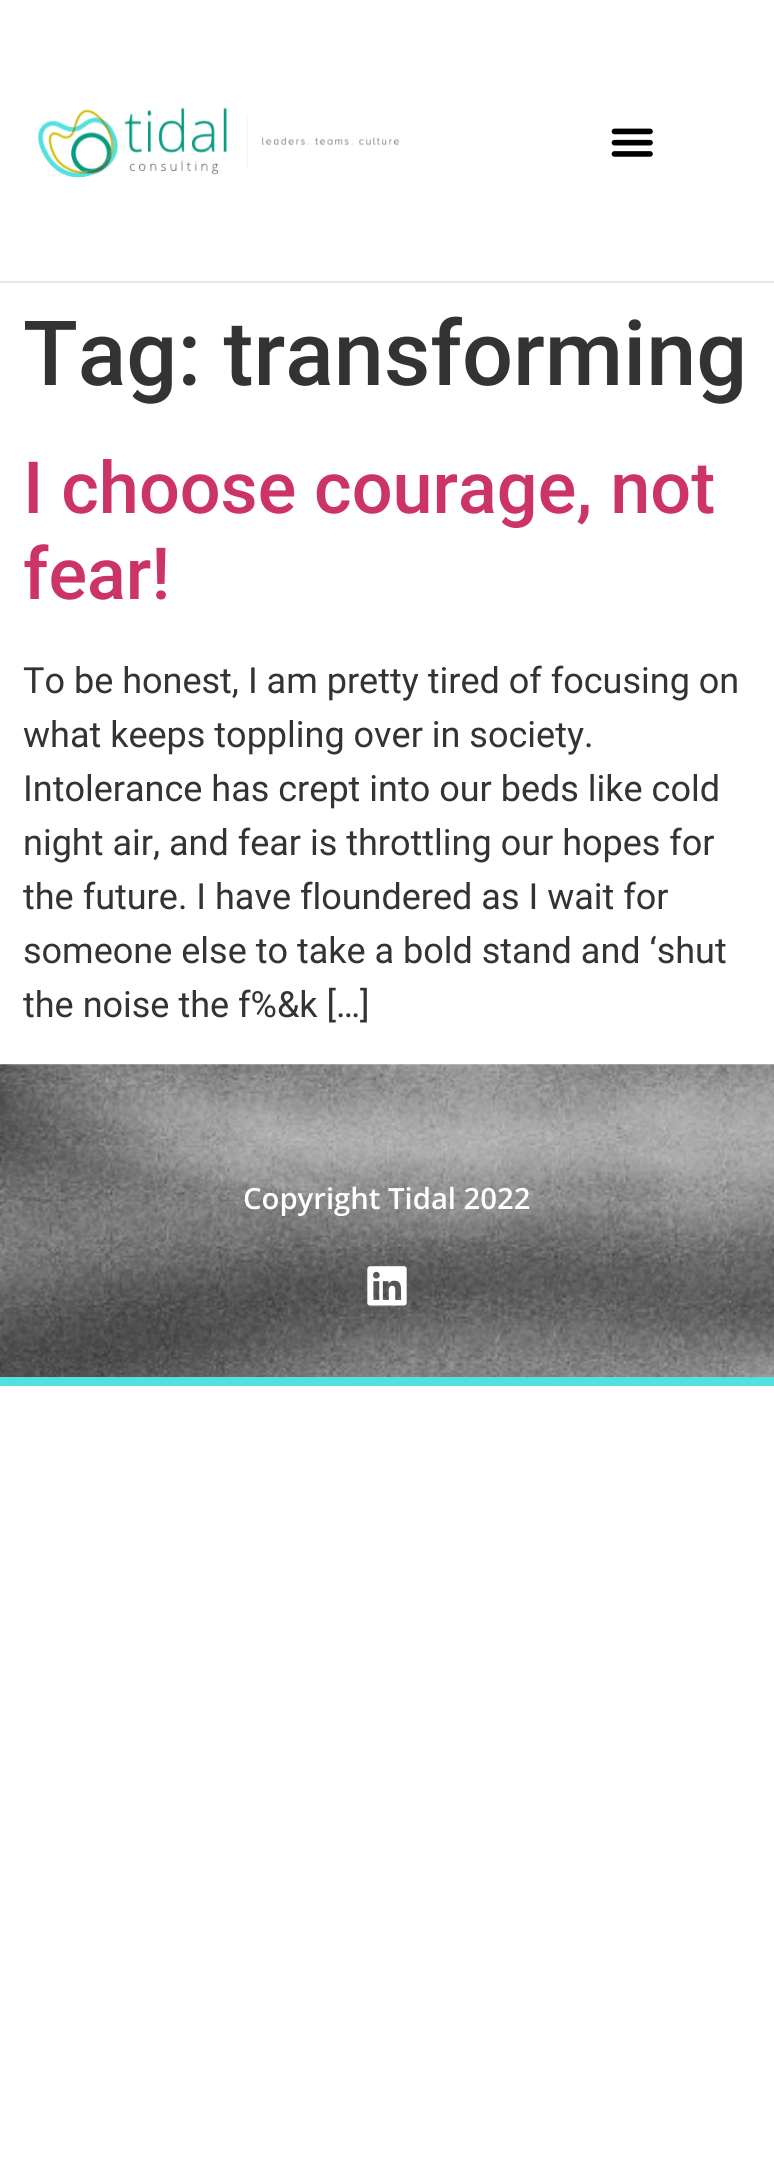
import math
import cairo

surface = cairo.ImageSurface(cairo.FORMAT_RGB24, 774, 2164)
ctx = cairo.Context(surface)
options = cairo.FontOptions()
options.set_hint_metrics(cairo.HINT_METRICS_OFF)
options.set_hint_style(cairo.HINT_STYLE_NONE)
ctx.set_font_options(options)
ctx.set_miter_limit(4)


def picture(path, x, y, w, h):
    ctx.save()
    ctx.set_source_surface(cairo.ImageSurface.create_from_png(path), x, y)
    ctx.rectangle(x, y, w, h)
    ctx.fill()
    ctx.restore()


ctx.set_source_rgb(1, 1, 1)
ctx.paint()
ctx.set_source_rgb(0.906, 0.906, 0.906)
ctx.rectangle(0, 281, 774, 2)
ctx.fill()
picture("img1.png", 38, 107, 362, 71)
picture("img2.png", 611, 128, 42, 29)
ctx.select_font_face("Roboto Medium")
ctx.set_font_size(90)
ctx.set_source_rgb(0.2, 0.2, 0.2)
ctx.move_to(23, 385)
ctx.show_text("Tag: transforming")
ctx.set_font_size(72)
ctx.set_source_rgb(0.8, 0.2, 0.4)
ctx.move_to(23, 513)
ctx.show_text("I choose courage, not")
ctx.move_to(23, 599)
ctx.show_text("fear!")
ctx.select_font_face("Roboto")
ctx.set_font_size(36)
ctx.set_source_rgb(0.2, 0.2, 0.2)
ctx.move_to(23, 693)
ctx.show_text("To be honest, I am pretty tired of focusing on")
ctx.move_to(23, 747)
ctx.show_text("what keeps toppling over in society.")
ctx.move_to(23, 801)
ctx.show_text("Intolerance has crept into our beds like cold")
ctx.move_to(23, 855)
ctx.show_text("night air, and fear is throttling our hopes for")
ctx.move_to(23, 909)
ctx.show_text("the future. I have floundered as I wait for")
ctx.move_to(23, 963)
ctx.show_text("someone else to take a bold stand and ‘shut")
ctx.move_to(23, 1017)
ctx.show_text("the noise the f%&k […]")
picture("img3.png", 0, 1064, 774, 313)
ctx.set_source_rgb(0.325, 0.878, 0.878)
ctx.rectangle(0, 1377, 774, 9)
ctx.fill()
ctx.select_font_face("Open Sans SemiBold")
ctx.set_font_size(29.25)
ctx.set_source_rgb(1, 1, 1)
ctx.move_to(243, 1209)
ctx.show_text("Copyright Tidal 2022")
picture("img4.png", 367, 1266, 40, 40)
surface.write_to_png("page.png")
